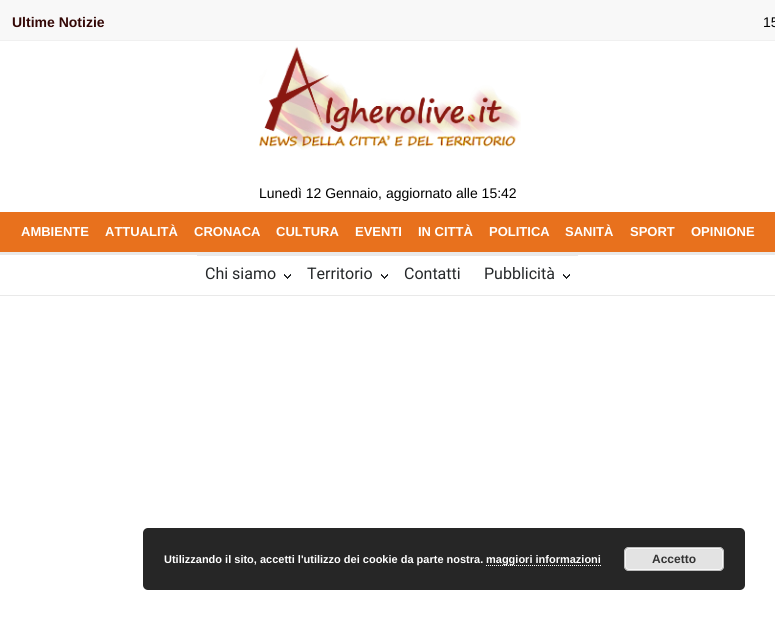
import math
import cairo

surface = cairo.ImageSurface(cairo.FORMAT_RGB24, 775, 620)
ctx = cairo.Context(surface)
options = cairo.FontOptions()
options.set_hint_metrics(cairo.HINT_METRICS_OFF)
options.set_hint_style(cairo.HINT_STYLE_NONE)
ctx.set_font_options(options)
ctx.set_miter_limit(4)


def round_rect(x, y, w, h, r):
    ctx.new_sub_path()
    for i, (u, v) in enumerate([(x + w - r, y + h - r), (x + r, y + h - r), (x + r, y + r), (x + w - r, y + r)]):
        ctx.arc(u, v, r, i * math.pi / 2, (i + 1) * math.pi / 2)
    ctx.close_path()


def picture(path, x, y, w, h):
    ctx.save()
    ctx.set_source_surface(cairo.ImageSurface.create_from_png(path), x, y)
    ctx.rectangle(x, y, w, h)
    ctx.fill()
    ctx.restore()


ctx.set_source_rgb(1, 1, 1)
ctx.paint()
ctx.set_source_rgb(0.969, 0.969, 0.969)
ctx.rectangle(0, 0, 775, 40)
ctx.fill()
ctx.set_source_rgb(0.941, 0.941, 0.941)
ctx.rectangle(0, 40, 775, 1)
ctx.fill()
ctx.select_font_face("Liberation Sans", cairo.FONT_SLANT_NORMAL, cairo.FONT_WEIGHT_BOLD)
ctx.set_font_size(14)
ctx.set_source_rgb(0.204, 0.035, 0.027)
ctx.move_to(12, 27)
ctx.show_text("Ultime Notizie")
ctx.select_font_face("Liberation Sans")
ctx.set_source_rgb(0, 0, 0)
ctx.move_to(763, 27)
ctx.show_text("15")
picture("img1.png", 259, 46, 262, 104)
ctx.move_to(259, 198)
ctx.show_text("Lunedì 12 Gennaio, aggiornato alle 15:42")
ctx.set_source_rgb(0.91, 0.443, 0.114)
ctx.rectangle(0, 212, 775, 40)
ctx.fill()
ctx.select_font_face("Liberation Sans", cairo.FONT_SLANT_NORMAL, cairo.FONT_WEIGHT_BOLD)
ctx.set_font_size(13)
ctx.set_source_rgb(1, 1, 1)
ctx.move_to(21, 236)
ctx.show_text("AMBIENTE")
ctx.move_to(105, 236)
ctx.show_text("ATTUALITÀ")
ctx.move_to(194, 236)
ctx.show_text("CRONACA")
ctx.move_to(276, 236)
ctx.show_text("CULTURA")
ctx.move_to(355, 236)
ctx.show_text("EVENTI")
ctx.move_to(418, 236)
ctx.show_text("IN CITTÀ")
ctx.move_to(489, 236)
ctx.show_text("POLITICA")
ctx.move_to(565, 236)
ctx.show_text("SANITÀ")
ctx.move_to(630, 236)
ctx.show_text("SPORT")
ctx.move_to(691, 236)
ctx.show_text("OPINIONE")
ctx.set_source_rgb(0.914, 0.914, 0.914)
ctx.rectangle(0, 252, 775, 3)
ctx.fill()
ctx.rectangle(0, 295, 775, 1)
ctx.fill()
ctx.rectangle(197, 255, 381, 1)
ctx.fill()
picture("img2.png", 284, 274, 7, 5)
ctx.select_font_face("Roboto")
ctx.set_font_size(16)
ctx.set_source_rgb(0.145, 0.157, 0.165)
ctx.move_to(205, 279)
ctx.show_text("Chi siamo")
picture("img2.png", 381, 274, 7, 5)
ctx.move_to(307, 279)
ctx.show_text("Territorio")
ctx.move_to(404, 279)
ctx.show_text("Contatti")
picture("img2.png", 563, 274, 7, 5)
ctx.move_to(484, 279)
ctx.show_text("Pubblicità")
ctx.set_source_rgb(0.149, 0.149, 0.149)
round_rect(143, 528, 602, 62, 5)
ctx.fill()
ctx.select_font_face("Liberation Sans", cairo.FONT_SLANT_NORMAL, cairo.FONT_WEIGHT_BOLD)
ctx.set_font_size(11)
ctx.set_source_rgb(1, 1, 1)
ctx.move_to(164, 563)
ctx.show_text("Utilizzando il sito, accetti l'utilizzo dei cookie da parte nostra.")
ctx.new_path()
ctx.move_to(486, 565.5)
ctx.line_to(601, 565.5)
ctx.set_line_width(1)
ctx.set_dash([1, 1])
ctx.stroke()
ctx.move_to(486, 563)
ctx.show_text("maggiori informazioni")
ctx.set_source_rgb(0.89, 0.89, 0.89)
round_rect(624, 547, 100, 24, 5)
ctx.fill()
round_rect(625.5, 548.5, 97, 21, 3.5)
ctx.set_source_rgb(0.965, 0.965, 0.965)
ctx.set_dash([])
ctx.stroke()
round_rect(624.5, 547.5, 99, 23, 4.5)
ctx.set_source_rgb(0.733, 0.733, 0.733)
ctx.stroke()
ctx.set_font_size(12)
ctx.set_source_rgb(0.2, 0.2, 0.2)
ctx.move_to(652, 563)
ctx.show_text("Accetto")
surface.write_to_png("page.png")
